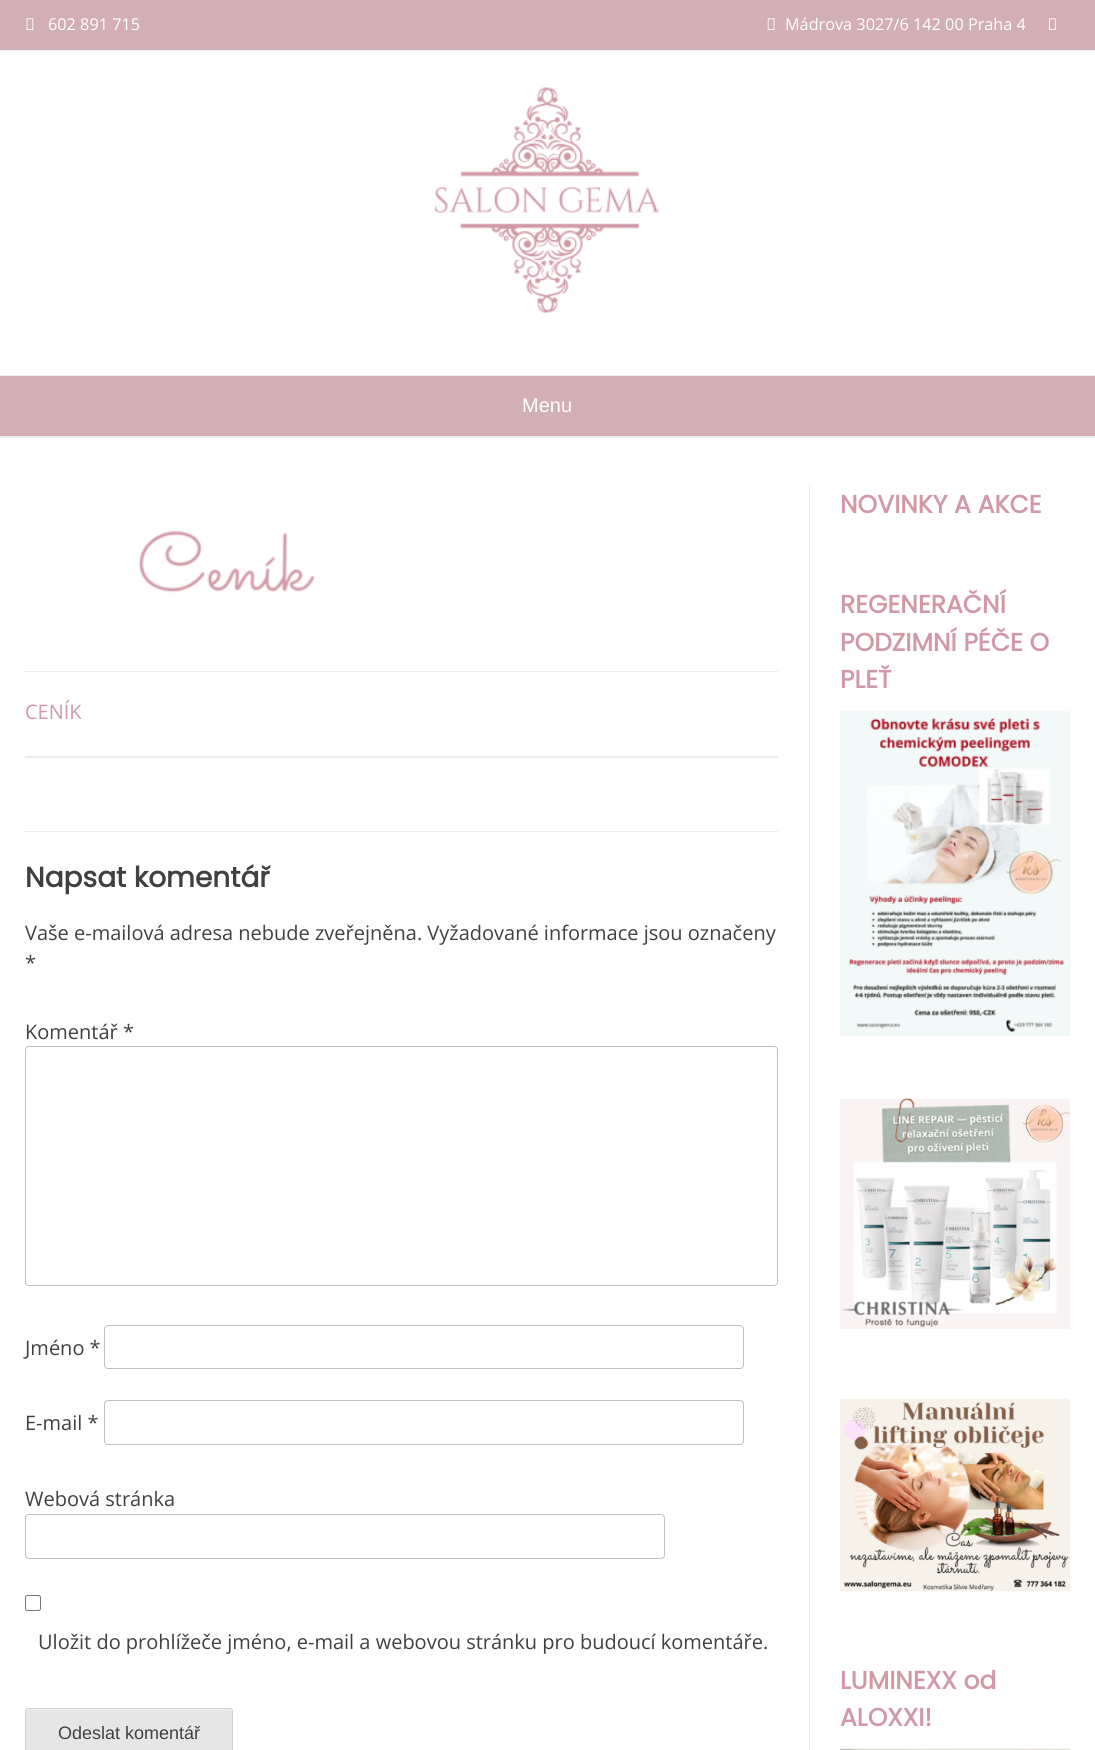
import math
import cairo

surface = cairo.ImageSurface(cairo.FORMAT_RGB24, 1095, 1750)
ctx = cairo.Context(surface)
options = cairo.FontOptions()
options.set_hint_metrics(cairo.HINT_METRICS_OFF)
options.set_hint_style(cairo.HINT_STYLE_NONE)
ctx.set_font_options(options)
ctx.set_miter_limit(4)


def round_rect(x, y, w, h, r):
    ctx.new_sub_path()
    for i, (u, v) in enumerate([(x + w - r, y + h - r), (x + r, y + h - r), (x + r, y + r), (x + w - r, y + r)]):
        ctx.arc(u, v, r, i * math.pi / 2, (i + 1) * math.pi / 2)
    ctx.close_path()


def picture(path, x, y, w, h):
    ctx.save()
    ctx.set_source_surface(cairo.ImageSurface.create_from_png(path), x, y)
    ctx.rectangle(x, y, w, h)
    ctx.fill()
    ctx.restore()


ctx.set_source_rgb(1, 1, 1)
ctx.paint()
ctx.set_source_rgb(0.922, 0.922, 0.922)
ctx.rectangle(0, 436, 1095, 2)
ctx.fill()
ctx.rectangle(0, 50, 1095, 1)
ctx.fill()
ctx.set_source_rgb(0.82, 0.686, 0.706)
ctx.rectangle(0, 0, 1095, 50)
ctx.fill()
picture("img1.png", 26, 18, 8, 12)
ctx.select_font_face("Open Sans")
ctx.set_font_size(16.25)
ctx.set_source_rgb(1, 1, 1)
ctx.move_to(48, 30)
ctx.show_text("602 891 715")
picture("img2.png", 767, 18, 8, 12)
ctx.move_to(785, 30)
ctx.show_text("Mádrova 3027/6 142 00 Praha 4")
picture("img3.png", 1049, 18, 7, 12)
picture("img4.png", 434, 87, 226, 226)
ctx.set_source_rgb(0.922, 0.922, 0.922)
ctx.rectangle(0, 375, 1095, 1)
ctx.fill()
ctx.set_source_rgb(0.82, 0.686, 0.706)
ctx.rectangle(0, 376, 1095, 60)
ctx.fill()
ctx.select_font_face("Liberation Sans")
ctx.set_font_size(20)
ctx.set_source_rgb(1, 1, 1)
ctx.move_to(522, 412)
ctx.show_text("Menu")
ctx.set_source_rgb(0.922, 0.922, 0.922)
ctx.new_path()
ctx.move_to(26, 486)
ctx.line_to(809, 486)
ctx.line_to(809, 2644)
ctx.line_to(26, 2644)
ctx.line_to(810, 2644)
ctx.line_to(810, 486)
ctx.close_path()
ctx.fill()
picture("img5.png", 138, 530, 177, 63)
ctx.new_path()
ctx.move_to(25, 671)
ctx.line_to(25, 672)
ctx.line_to(778, 672)
ctx.line_to(778, 726)
ctx.line_to(778, 671)
ctx.close_path()
ctx.fill()
ctx.select_font_face("Open Sans")
ctx.set_source_rgb(0.82, 0.6, 0.655)
ctx.move_to(25, 719)
ctx.show_text("CENÍK")
ctx.set_source_rgb(0.922, 0.922, 0.922)
ctx.new_path()
ctx.move_to(25, 756)
ctx.line_to(25, 758)
ctx.line_to(778, 758)
ctx.line_to(778, 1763)
ctx.line_to(778, 756)
ctx.close_path()
ctx.fill()
ctx.new_path()
ctx.move_to(25, 831)
ctx.line_to(25, 832)
ctx.line_to(778, 832)
ctx.line_to(778, 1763)
ctx.line_to(778, 831)
ctx.close_path()
ctx.fill()
ctx.select_font_face("Poppins", cairo.FONT_SLANT_NORMAL, cairo.FONT_WEIGHT_BOLD)
ctx.set_font_size(28)
ctx.set_source_rgb(0.251, 0.251, 0.251)
ctx.move_to(25, 887)
ctx.show_text("Napsat komentář")
ctx.select_font_face("Open Sans")
ctx.set_font_size(20)
ctx.move_to(25, 940)
ctx.show_text("Vaše e-mailová adresa nebude zveřejněna. Vyžadované informace jsou označeny")
ctx.move_to(25, 970)
ctx.show_text("*")
ctx.move_to(25, 1039)
ctx.show_text("Komentář *")
round_rect(25.5, 1046.5, 752, 239, 3.5)
ctx.set_source_rgb(0.749, 0.749, 0.749)
ctx.set_line_width(1)
ctx.stroke()
ctx.set_source_rgb(0.251, 0.251, 0.251)
ctx.move_to(25, 1355)
ctx.show_text("Jméno *")
round_rect(104.5, 1325.5, 639, 43, 3.5)
ctx.set_source_rgb(0.749, 0.749, 0.749)
ctx.stroke()
ctx.set_source_rgb(0.251, 0.251, 0.251)
ctx.move_to(25, 1430)
ctx.show_text("E-mail *")
round_rect(104.5, 1400.5, 639, 44, 3.5)
ctx.set_source_rgb(0.749, 0.749, 0.749)
ctx.stroke()
ctx.set_source_rgb(0.251, 0.251, 0.251)
ctx.move_to(25, 1506)
ctx.show_text("Webová stránka")
round_rect(25.5, 1514.5, 639, 44, 3.5)
ctx.set_source_rgb(0.749, 0.749, 0.749)
ctx.stroke()
round_rect(25.5, 1595.5, 15, 15, 2)
ctx.set_source_rgb(0.463, 0.463, 0.463)
ctx.stroke()
ctx.set_source_rgb(0.251, 0.251, 0.251)
ctx.move_to(38, 1649)
ctx.show_text("Uložit do prohlížeče jméno, e-mail a webovou stránku pro budoucí komentáře.")
ctx.set_source_rgba(0, 0, 0, 0.1)
round_rect(25, 1708, 208, 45, 2.5)
ctx.fill()
ctx.set_source_rgb(0.941, 0.941, 0.941)
ctx.new_path()
ctx.move_to(28, 1710)
ctx.line_to(230, 1710)
ctx.line_to(231, 1711)
ctx.curve_to(231, 1710, 231, 1709, 230, 1709)
ctx.line_to(27, 1709)
ctx.line_to(26, 1709)
ctx.line_to(26, 1711)
ctx.close_path()
ctx.fill()
round_rect(25.5, 1708.5, 207, 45, 2)
ctx.set_source_rgba(0, 0, 0, 0.1)
ctx.stroke()
ctx.select_font_face("Liberation Sans")
ctx.set_font_size(18)
ctx.set_source_rgb(0.251, 0.251, 0.251)
ctx.move_to(58, 1739)
ctx.show_text("Odeslat komentář")
ctx.select_font_face("Poppins", cairo.FONT_SLANT_NORMAL, cairo.FONT_WEIGHT_BOLD)
ctx.set_font_size(25)
ctx.set_source_rgb(0.82, 0.6, 0.655)
ctx.move_to(840, 513)
ctx.show_text("NOVINKY A AKCE")
ctx.move_to(840, 613)
ctx.show_text("REGENERAČNÍ")
ctx.move_to(840, 651)
ctx.show_text("PODZIMNÍ PÉČE O")
ctx.move_to(840, 688)
ctx.show_text("PLEŤ")
picture("img6.png", 840, 711, 230, 325)
picture("img7.png", 840, 1098, 230, 231)
picture("img8.png", 840, 1398, 230, 194)
ctx.move_to(840, 1689)
ctx.show_text("LUMINEXX od")
ctx.move_to(840, 1726)
ctx.show_text("ALOXXI!")
picture("img9.png", 840, 1748, 230, 2)
surface.write_to_png("page.png")
